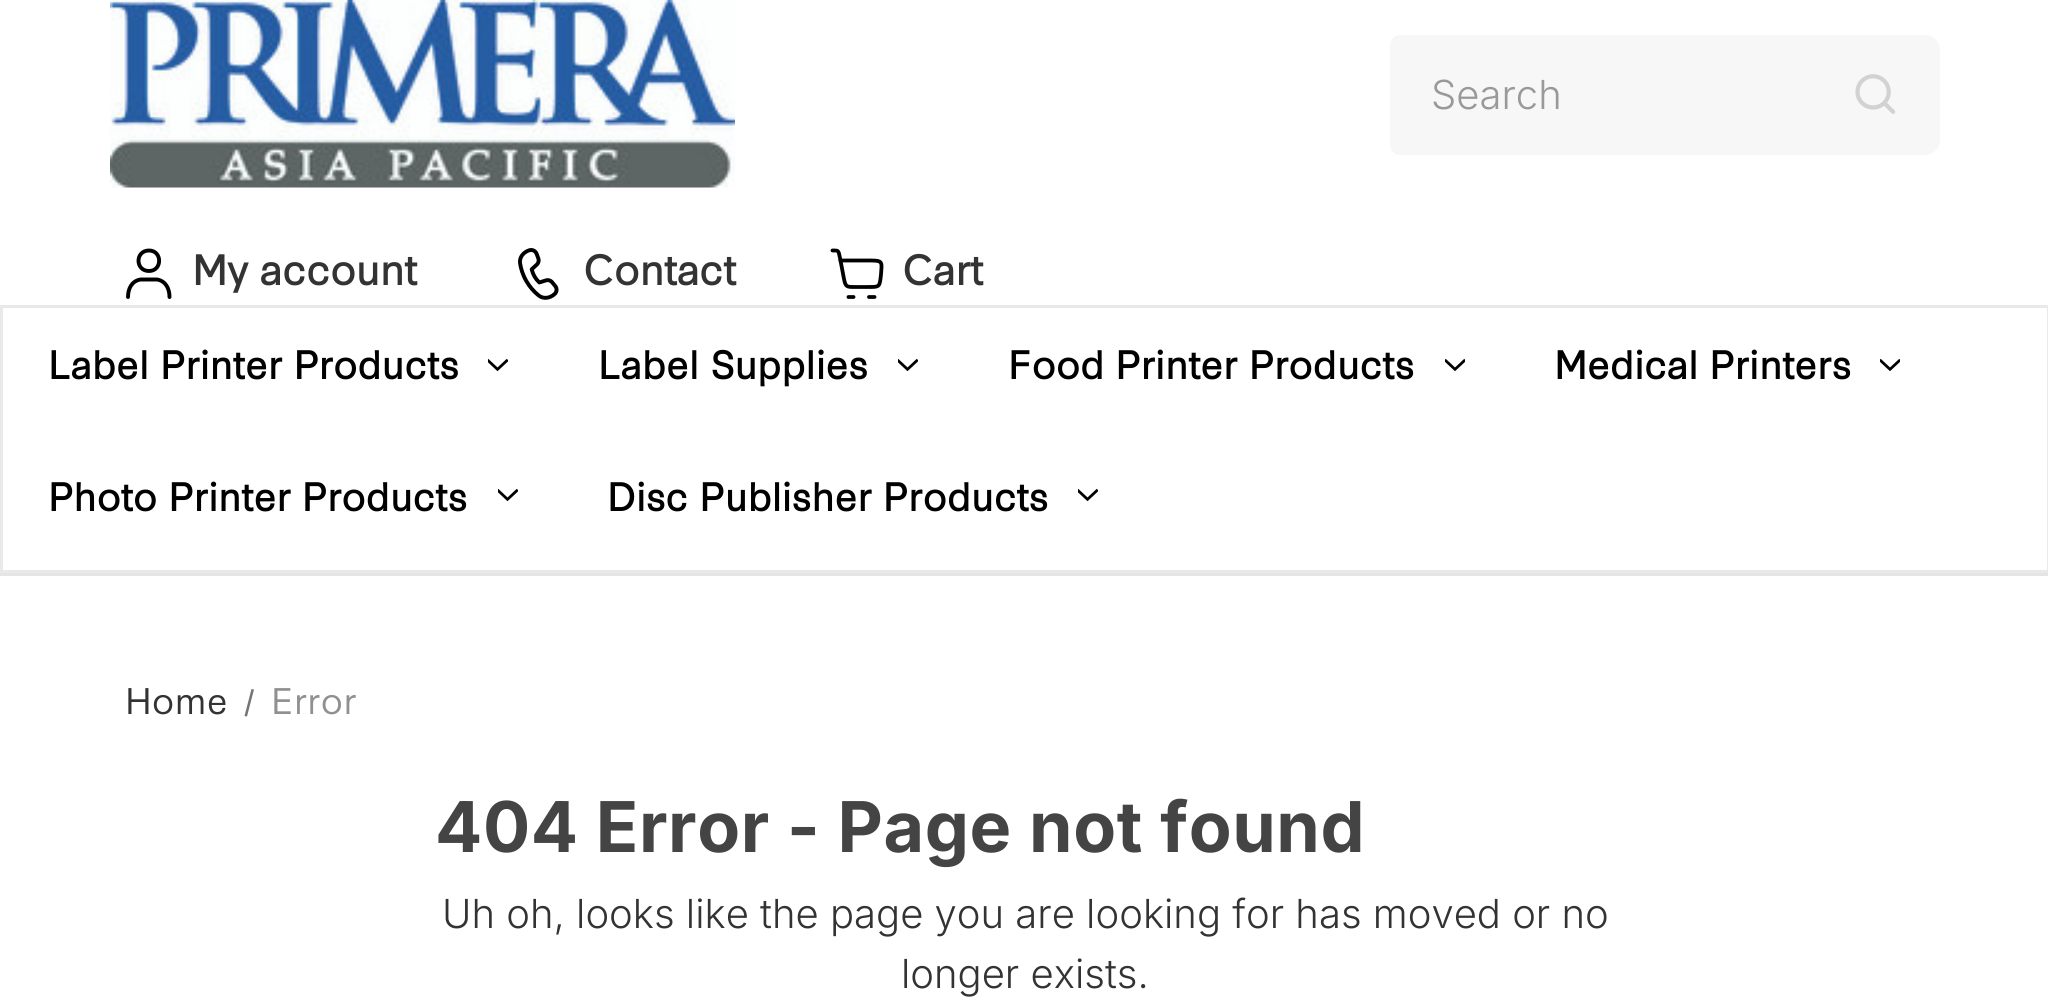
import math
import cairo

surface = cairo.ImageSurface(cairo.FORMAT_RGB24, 2048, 1005)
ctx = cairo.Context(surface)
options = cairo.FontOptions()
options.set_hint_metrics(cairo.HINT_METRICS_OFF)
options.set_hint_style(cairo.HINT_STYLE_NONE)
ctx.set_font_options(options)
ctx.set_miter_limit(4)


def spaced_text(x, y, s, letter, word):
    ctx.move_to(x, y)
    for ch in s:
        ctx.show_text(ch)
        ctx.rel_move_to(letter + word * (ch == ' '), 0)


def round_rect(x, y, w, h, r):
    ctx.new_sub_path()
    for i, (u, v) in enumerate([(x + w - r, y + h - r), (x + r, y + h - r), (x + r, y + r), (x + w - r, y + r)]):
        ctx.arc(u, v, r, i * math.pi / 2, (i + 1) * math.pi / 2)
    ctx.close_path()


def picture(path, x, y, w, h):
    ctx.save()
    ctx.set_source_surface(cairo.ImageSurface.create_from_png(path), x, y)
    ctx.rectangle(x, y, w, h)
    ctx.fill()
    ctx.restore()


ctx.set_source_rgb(1, 1, 1)
ctx.paint()
ctx.set_source_rgb(0.898, 0.898, 0.898)
ctx.rectangle(0, 573, 2048, 3)
ctx.fill()
picture("img1.png", 110, 0, 625, 188)
ctx.set_source_rgb(0.965, 0.965, 0.965)
round_rect(1390, 35, 550, 120, 15)
ctx.fill()
round_rect(1390, 35, 460, 120, 10)
ctx.fill()
ctx.select_font_face("Inter Light")
ctx.set_font_size(40)
ctx.set_source_rgb(0.6, 0.6, 0.6)
ctx.move_to(1431, 109)
ctx.show_text("Search")
picture("img2.png", 1855, 74, 41, 40)
ctx.new_path()
ctx.move_to(128, 297)
ctx.curve_to(128, 289, 131.5, 281, 140.5, 279.5)
ctx.line_to(157, 279.5)
ctx.curve_to(166, 281, 169.5, 289, 169.5, 297)
ctx.move_to(149, 271)
ctx.curve_to(135, 271, 135, 250.5, 149, 250.5)
ctx.curve_to(162.5, 250.5, 162.5, 271, 149, 271)
ctx.close_path()
ctx.set_source_rgb(0, 0, 0)
ctx.set_line_width(3.9)
ctx.set_line_cap(cairo.LINE_CAP_ROUND)
ctx.stroke()
ctx.select_font_face("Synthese", cairo.FONT_SLANT_NORMAL, cairo.FONT_WEIGHT_BOLD)
ctx.set_source_rgb(0.2, 0.2, 0.2)
spaced_text(192, 285, "My account", -0.25, 0)
picture("img3.png", 518, 248, 41, 52)
spaced_text(583, 285, "Contact", -0.25, 0)
ctx.new_path()
ctx.move_to(840.5, 260.5)
ctx.line_to(870.5, 260.5)
ctx.curve_to(883, 260.5, 882, 262, 881, 274.5)
ctx.curve_to(879.5, 287.5, 880, 287, 866.5, 287)
ctx.line_to(854, 287)
ctx.curve_to(846.5, 287, 845.5, 286.5, 844, 279)
ctx.close_path()
ctx.set_source_rgb(0, 0, 0)
ctx.set_line_width(3.8)
ctx.set_line_cap(cairo.LINE_CAP_BUTT)
ctx.set_line_join(cairo.LINE_JOIN_ROUND)
ctx.stroke()
ctx.new_path()
ctx.move_to(840.5, 260.5)
ctx.line_to(839, 253.5)
ctx.curve_to(838, 250, 836.5, 250.5, 832.5, 250.5)
ctx.move_to(848.5, 297)
ctx.line_to(853.5, 297)
ctx.move_to(869, 297)
ctx.line_to(874.5, 297)
ctx.set_line_cap(cairo.LINE_CAP_ROUND)
ctx.stroke()
ctx.set_source_rgb(0.2, 0.2, 0.2)
spaced_text(902, 285, "Cart", -0.25, 0)
ctx.rectangle(1.5, 306.5, 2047, 265)
ctx.set_source_rgb(0.914, 0.914, 0.914)
ctx.set_line_width(3)
ctx.set_line_cap(cairo.LINE_CAP_BUTT)
ctx.set_line_join(cairo.LINE_JOIN_MITER)
ctx.stroke()
ctx.set_font_size(37.5)
ctx.set_source_rgb(0, 0, 0)
ctx.move_to(48, 379)
ctx.show_text("Label Printer Products")
picture("img4.png", 488, 358, 20, 14)
ctx.move_to(598, 379)
ctx.show_text("Label Supplies")
picture("img4.png", 898, 358, 20, 14)
ctx.move_to(1008, 379)
ctx.show_text("Food Printer Products")
picture("img5.png", 1445, 358, 20, 13)
ctx.move_to(1554, 379)
ctx.show_text("Medical Printers")
picture("img5.png", 1880, 358, 20, 13)
ctx.move_to(48, 511)
ctx.show_text("Photo Printer Products")
picture("img4.png", 498, 488, 20, 14)
ctx.move_to(607, 511)
ctx.show_text("Disc Publisher Products")
picture("img4.png", 1078, 488, 20, 14)
ctx.select_font_face("Synthese")
ctx.set_font_size(35)
ctx.set_source_rgb(0.2, 0.2, 0.2)
ctx.move_to(125, 714)
ctx.show_text("Home")
ctx.set_source_rgb(0.459, 0.459, 0.459)
ctx.new_path()
ctx.move_to(251.5, 689)
ctx.line_to(254, 689.5)
ctx.line_to(247, 716.5)
ctx.line_to(244.5, 716)
ctx.close_path()
ctx.fill()
ctx.set_source_rgb(0.565, 0.565, 0.565)
ctx.move_to(271, 714)
ctx.show_text("Error")
ctx.select_font_face("Inter", cairo.FONT_SLANT_NORMAL, cairo.FONT_WEIGHT_BOLD)
ctx.set_font_size(70)
ctx.set_source_rgb(0.267, 0.267, 0.267)
spaced_text(435, 852, "404 Error - Page not found", 0.6, 0)
ctx.select_font_face("Inter Light")
ctx.set_font_size(40)
ctx.set_source_rgb(0.2, 0.2, 0.2)
ctx.move_to(442, 928)
ctx.show_text("Uh oh, looks like the page you are looking for has moved or no")
ctx.move_to(901, 988)
ctx.show_text("longer exists.")
surface.write_to_png("page.png")
